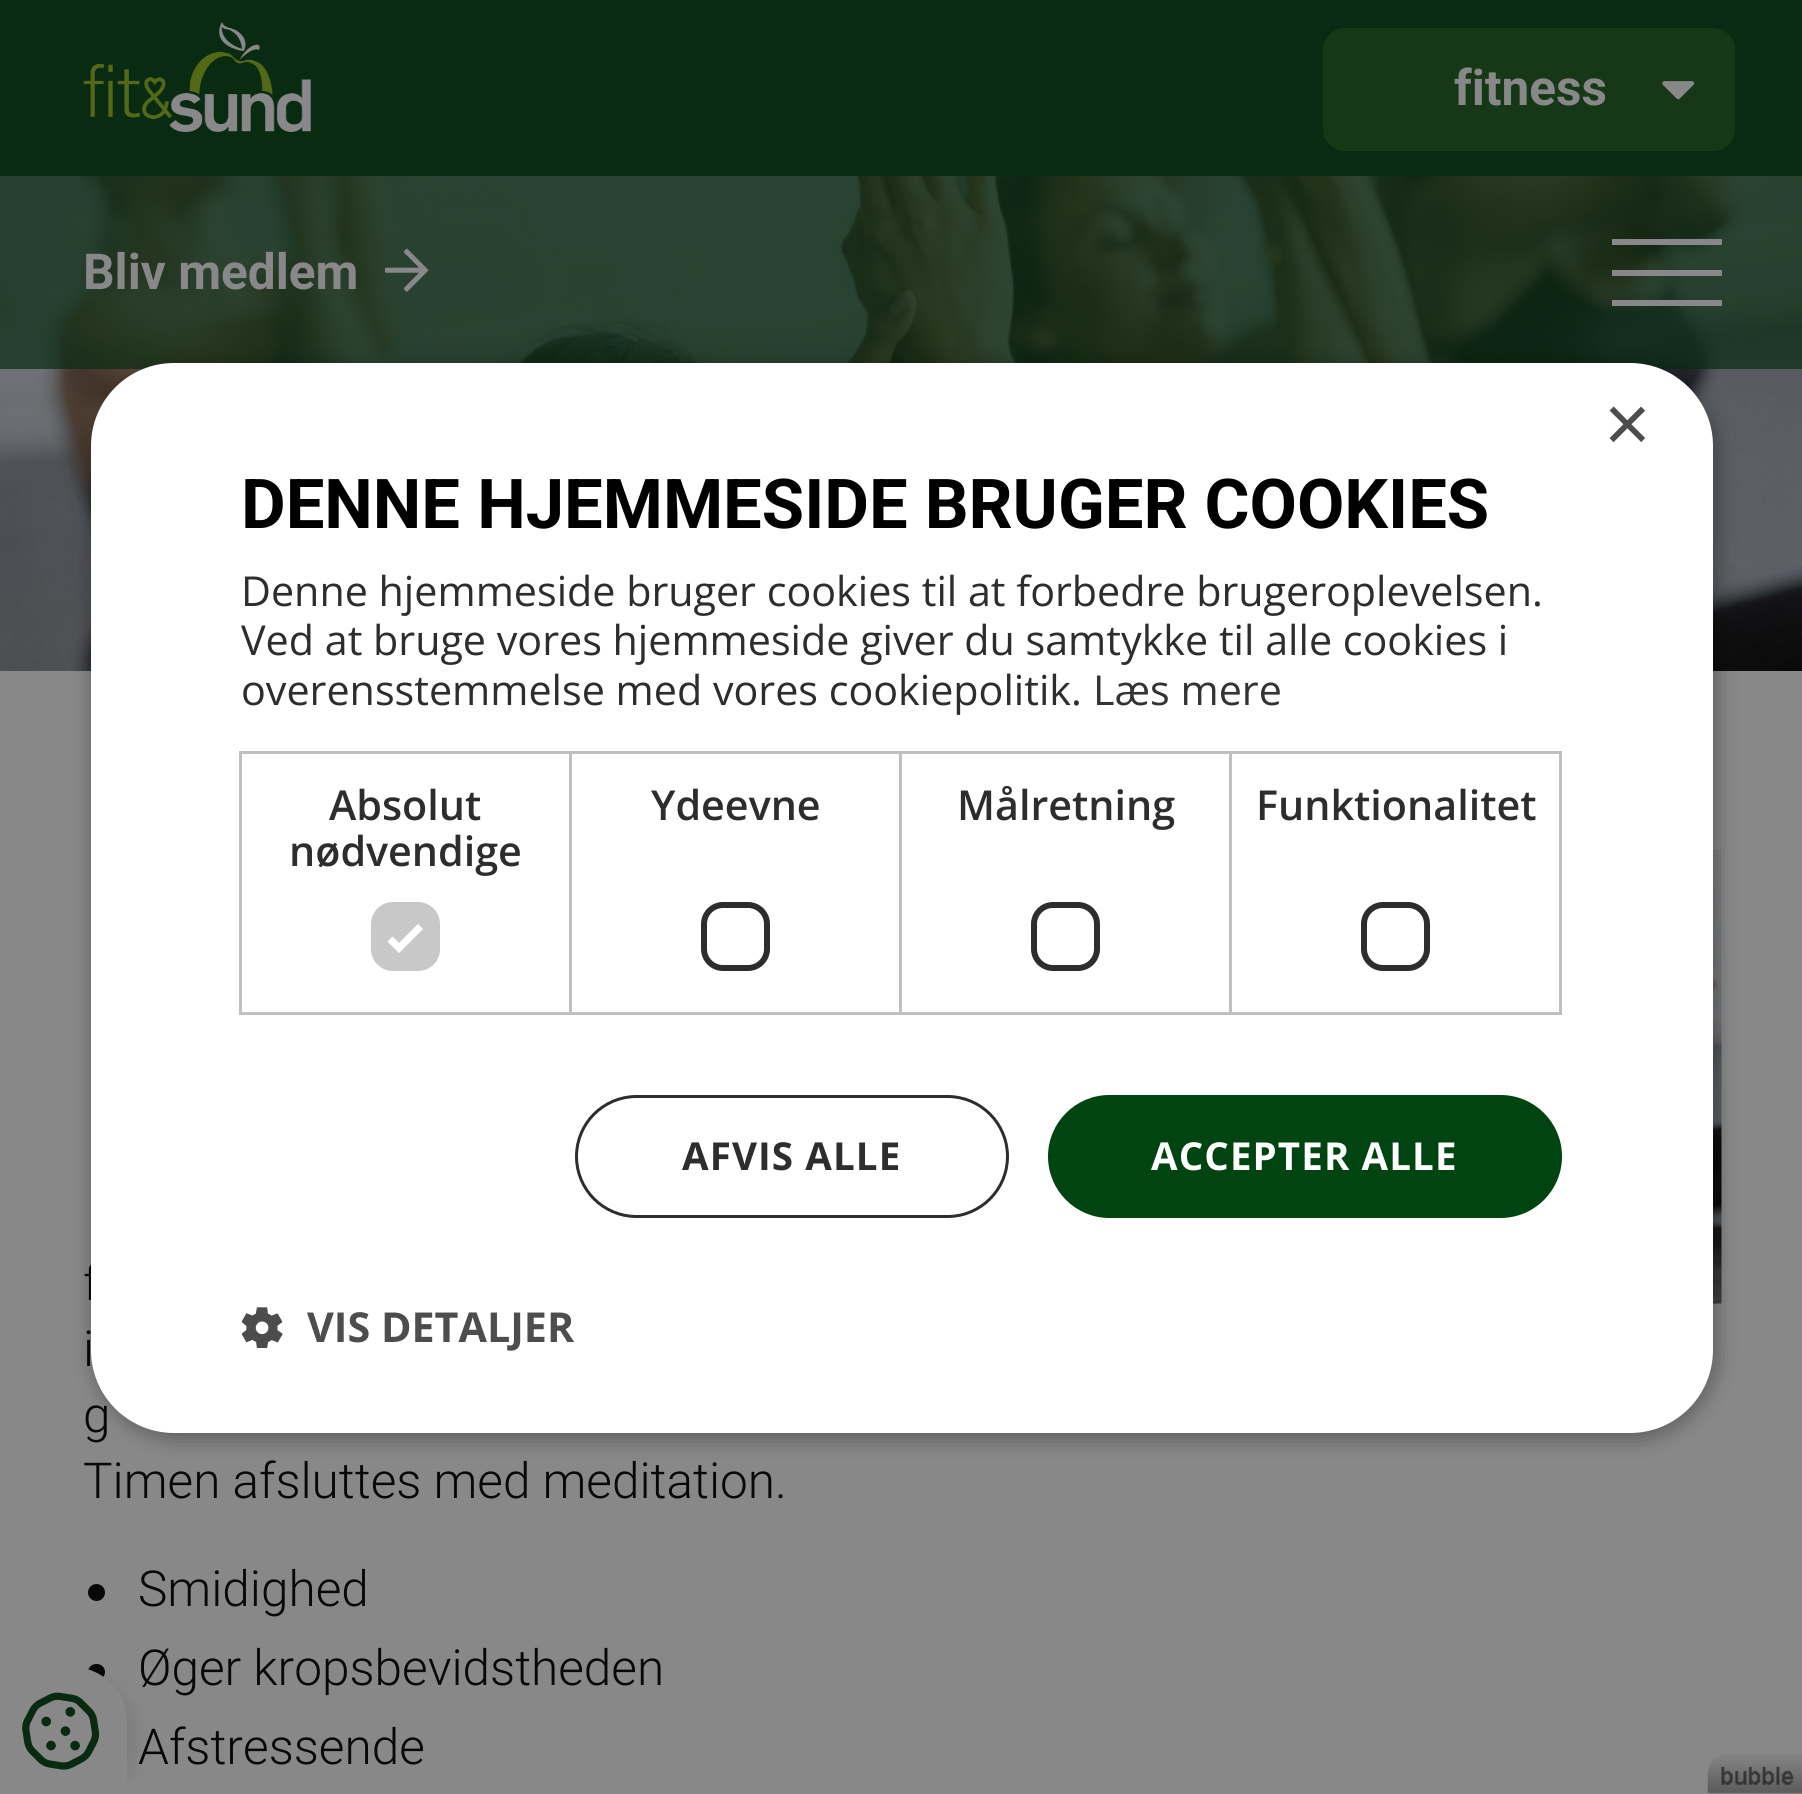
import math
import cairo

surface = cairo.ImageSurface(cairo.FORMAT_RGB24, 1802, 1794)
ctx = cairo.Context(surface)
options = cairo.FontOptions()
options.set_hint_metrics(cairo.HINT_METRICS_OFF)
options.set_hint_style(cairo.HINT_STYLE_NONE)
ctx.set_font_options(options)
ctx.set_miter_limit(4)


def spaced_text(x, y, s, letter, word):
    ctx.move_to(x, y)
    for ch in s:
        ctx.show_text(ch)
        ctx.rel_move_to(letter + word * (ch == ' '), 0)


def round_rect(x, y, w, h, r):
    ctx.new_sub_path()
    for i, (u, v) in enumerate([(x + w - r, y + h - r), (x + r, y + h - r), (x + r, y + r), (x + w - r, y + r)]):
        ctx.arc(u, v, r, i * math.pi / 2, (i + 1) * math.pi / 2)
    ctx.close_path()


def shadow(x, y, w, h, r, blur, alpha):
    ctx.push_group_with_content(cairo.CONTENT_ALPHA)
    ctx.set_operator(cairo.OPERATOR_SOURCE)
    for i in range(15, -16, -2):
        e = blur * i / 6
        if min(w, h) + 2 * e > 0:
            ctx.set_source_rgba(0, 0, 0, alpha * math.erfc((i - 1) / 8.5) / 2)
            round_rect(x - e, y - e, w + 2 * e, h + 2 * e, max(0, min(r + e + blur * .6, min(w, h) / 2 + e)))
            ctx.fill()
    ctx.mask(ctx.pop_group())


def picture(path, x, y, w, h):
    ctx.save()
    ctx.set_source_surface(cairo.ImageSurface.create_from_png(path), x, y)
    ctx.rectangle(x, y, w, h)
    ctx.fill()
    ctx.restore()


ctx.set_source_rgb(0.533, 0.533, 0.533)
ctx.paint()
ctx.set_source_rgb(0.035, 0.169, 0.067)
ctx.rectangle(0, 0, 1802, 176)
ctx.fill()
picture("img1.png", 83, 22, 228, 110)
ctx.set_source_rgb(0.09, 0.22, 0.086)
round_rect(1323, 28, 412, 123, 22)
ctx.fill()
ctx.select_font_face("Roboto", cairo.FONT_SLANT_NORMAL, cairo.FONT_WEIGHT_BOLD)
ctx.set_font_size(49.5)
ctx.set_source_rgb(0.533, 0.533, 0.533)
ctx.move_to(1454, 105)
ctx.show_text("fitness")
picture("img2.png", 1662, 81, 33, 19)
picture("img5.png", 0, 176, 1802, 495)
ctx.set_source_rgba(0.035, 0.169, 0.067, 0.7)
ctx.rectangle(0, 176, 1802, 193)
ctx.fill()
ctx.set_source_rgb(0.533, 0.533, 0.533)
ctx.move_to(83, 289)
ctx.show_text("Bliv medlem")
picture("img3.png", 385, 248, 44, 44)
ctx.rectangle(1612, 239, 110, 6)
ctx.fill()
ctx.rectangle(1612, 270, 110, 6)
ctx.fill()
ctx.rectangle(1612, 300, 110, 6)
ctx.fill()
ctx.set_source_rgb(0.035, 0.035, 0.035)
round_rect(88, 1664, 17, 16, 8)
ctx.fill()
ctx.set_source_rgb(0.035, 0.035, 0.035)
shadow(8, 1675, 127, 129, 55, 8, 0.1)
ctx.set_source_rgb(0.533, 0.533, 0.533)
ctx.new_path()
ctx.move_to(0, 1667)
ctx.line_to(72, 1667)
ctx.curve_to(102.5, 1667, 127, 1691.5, 127, 1722)
ctx.line_to(127, 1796)
ctx.line_to(0, 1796)
ctx.close_path()
ctx.fill()
picture("img4.png", 22, 1692, 78, 78)
picture("img6.png", 1713, 849, 9, 455)
ctx.select_font_face("Roboto Light")
ctx.set_source_rgb(0.035, 0.035, 0.035)
ctx.move_to(83, 1300)
ctx.show_text("f")
ctx.move_to(83, 1366)
ctx.show_text("i")
ctx.move_to(83, 1432)
ctx.show_text("g")
ctx.move_to(83, 1498)
ctx.show_text("Timen afsluttes med meditation.")
ctx.new_path()
ctx.arc(96.5, 1592.5, 8.5, 0, 2 * math.pi)
ctx.fill()
ctx.move_to(138, 1606)
ctx.show_text("Smidighed")
ctx.move_to(138, 1685)
ctx.show_text("Øger kropsbevidstheden")
ctx.move_to(138, 1764)
ctx.show_text("Afstressende")
ctx.set_source_rgb(0, 0, 0)
shadow(94, 369, 1622, 1069, 83, 11, 0.35)
ctx.set_source_rgb(1, 1, 1)
round_rect(91, 363, 1622, 1070, 83)
ctx.fill()
ctx.select_font_face("Liberation Sans")
ctx.set_font_size(80)
ctx.set_source_rgb(0.302, 0.302, 0.302)
ctx.move_to(1604, 451)
ctx.show_text("×")
ctx.select_font_face("Roboto", cairo.FONT_SLANT_NORMAL, cairo.FONT_WEIGHT_BOLD)
ctx.set_font_size(68.75)
ctx.set_source_rgb(0, 0, 0)
ctx.move_to(241, 528)
ctx.show_text("DENNE HJEMMESIDE BRUGER COOKIES")
ctx.select_font_face("Open Sans")
ctx.set_font_size(41.25)
ctx.set_source_rgb(0.176, 0.176, 0.176)
ctx.move_to(241, 606)
ctx.show_text("Denne hjemmeside bruger cookies til at forbedre brugeroplevelsen.")
ctx.move_to(241, 655)
ctx.show_text("Ved at bruge vores hjemmeside giver du samtykke til alle cookies i")
ctx.move_to(241, 705)
ctx.show_text("overensstemmelse med vores cookiepolitik.")
ctx.set_source_rgb(0.2, 0.2, 0.2)
ctx.move_to(1093, 705)
ctx.show_text("Læs mere")
ctx.rectangle(240.5, 752.5, 330, 261)
ctx.set_source_rgb(0.753, 0.753, 0.753)
ctx.set_line_width(3)
ctx.stroke()
ctx.select_font_face("Open Sans SemiBold")
ctx.set_source_rgb(0.176, 0.176, 0.176)
ctx.move_to(329, 820)
ctx.show_text("Absolut")
ctx.move_to(289, 866)
ctx.show_text("nødvendige")
ctx.set_source_rgb(0.784, 0.784, 0.784)
round_rect(371, 902, 69, 69, 22)
ctx.fill()
ctx.new_path()
ctx.move_to(390, 939)
ctx.line_to(399, 948)
ctx.line_to(420.5, 926.5)
ctx.set_source_rgb(1, 1, 1)
ctx.set_line_width(7.2)
ctx.stroke()
ctx.rectangle(570.5, 752.5, 330, 261)
ctx.set_source_rgb(0.753, 0.753, 0.753)
ctx.set_line_width(3)
ctx.stroke()
ctx.set_source_rgb(0.176, 0.176, 0.176)
ctx.move_to(651, 820)
ctx.show_text("Ydeevne")
round_rect(704, 905, 63, 63, 19)
ctx.set_line_width(6)
ctx.stroke()
ctx.rectangle(900.5, 752.5, 330, 261)
ctx.set_source_rgb(0.753, 0.753, 0.753)
ctx.set_line_width(3)
ctx.stroke()
ctx.set_source_rgb(0.176, 0.176, 0.176)
ctx.move_to(957, 820)
ctx.show_text("Målretning")
round_rect(1034, 905, 63, 63, 19)
ctx.set_line_width(6)
ctx.stroke()
ctx.rectangle(1230.5, 752.5, 330, 261)
ctx.set_source_rgb(0.753, 0.753, 0.753)
ctx.set_line_width(3)
ctx.stroke()
ctx.set_source_rgb(0.176, 0.176, 0.176)
ctx.move_to(1256, 820)
ctx.show_text("Funktionalitet")
round_rect(1364, 905, 63, 63, 19)
ctx.set_line_width(6)
ctx.stroke()
round_rect(576.5, 1096.5, 431, 120, 60)
ctx.set_line_width(3)
ctx.stroke()
ctx.select_font_face("Open Sans", cairo.FONT_SLANT_NORMAL, cairo.FONT_WEIGHT_BOLD)
ctx.set_font_size(38.5)
spaced_text(682, 1170, "AFVIS ALLE", 1.1, 0)
ctx.set_source_rgb(0, 0.267, 0.067)
round_rect(1048, 1095, 514, 123, 61.5)
ctx.fill()
ctx.set_source_rgb(1, 1, 1)
spaced_text(1151, 1170, "ACCEPTER ALLE", 1.1, 0)
picture("img7.png", 242, 1307, 41, 41)
ctx.set_font_size(41.25)
ctx.set_source_rgb(0.302, 0.302, 0.302)
ctx.move_to(307, 1342)
ctx.show_text("VIS DETALJER")
picture("img8.png", 1707, 1754, 95, 40)
surface.write_to_png("page.png")
